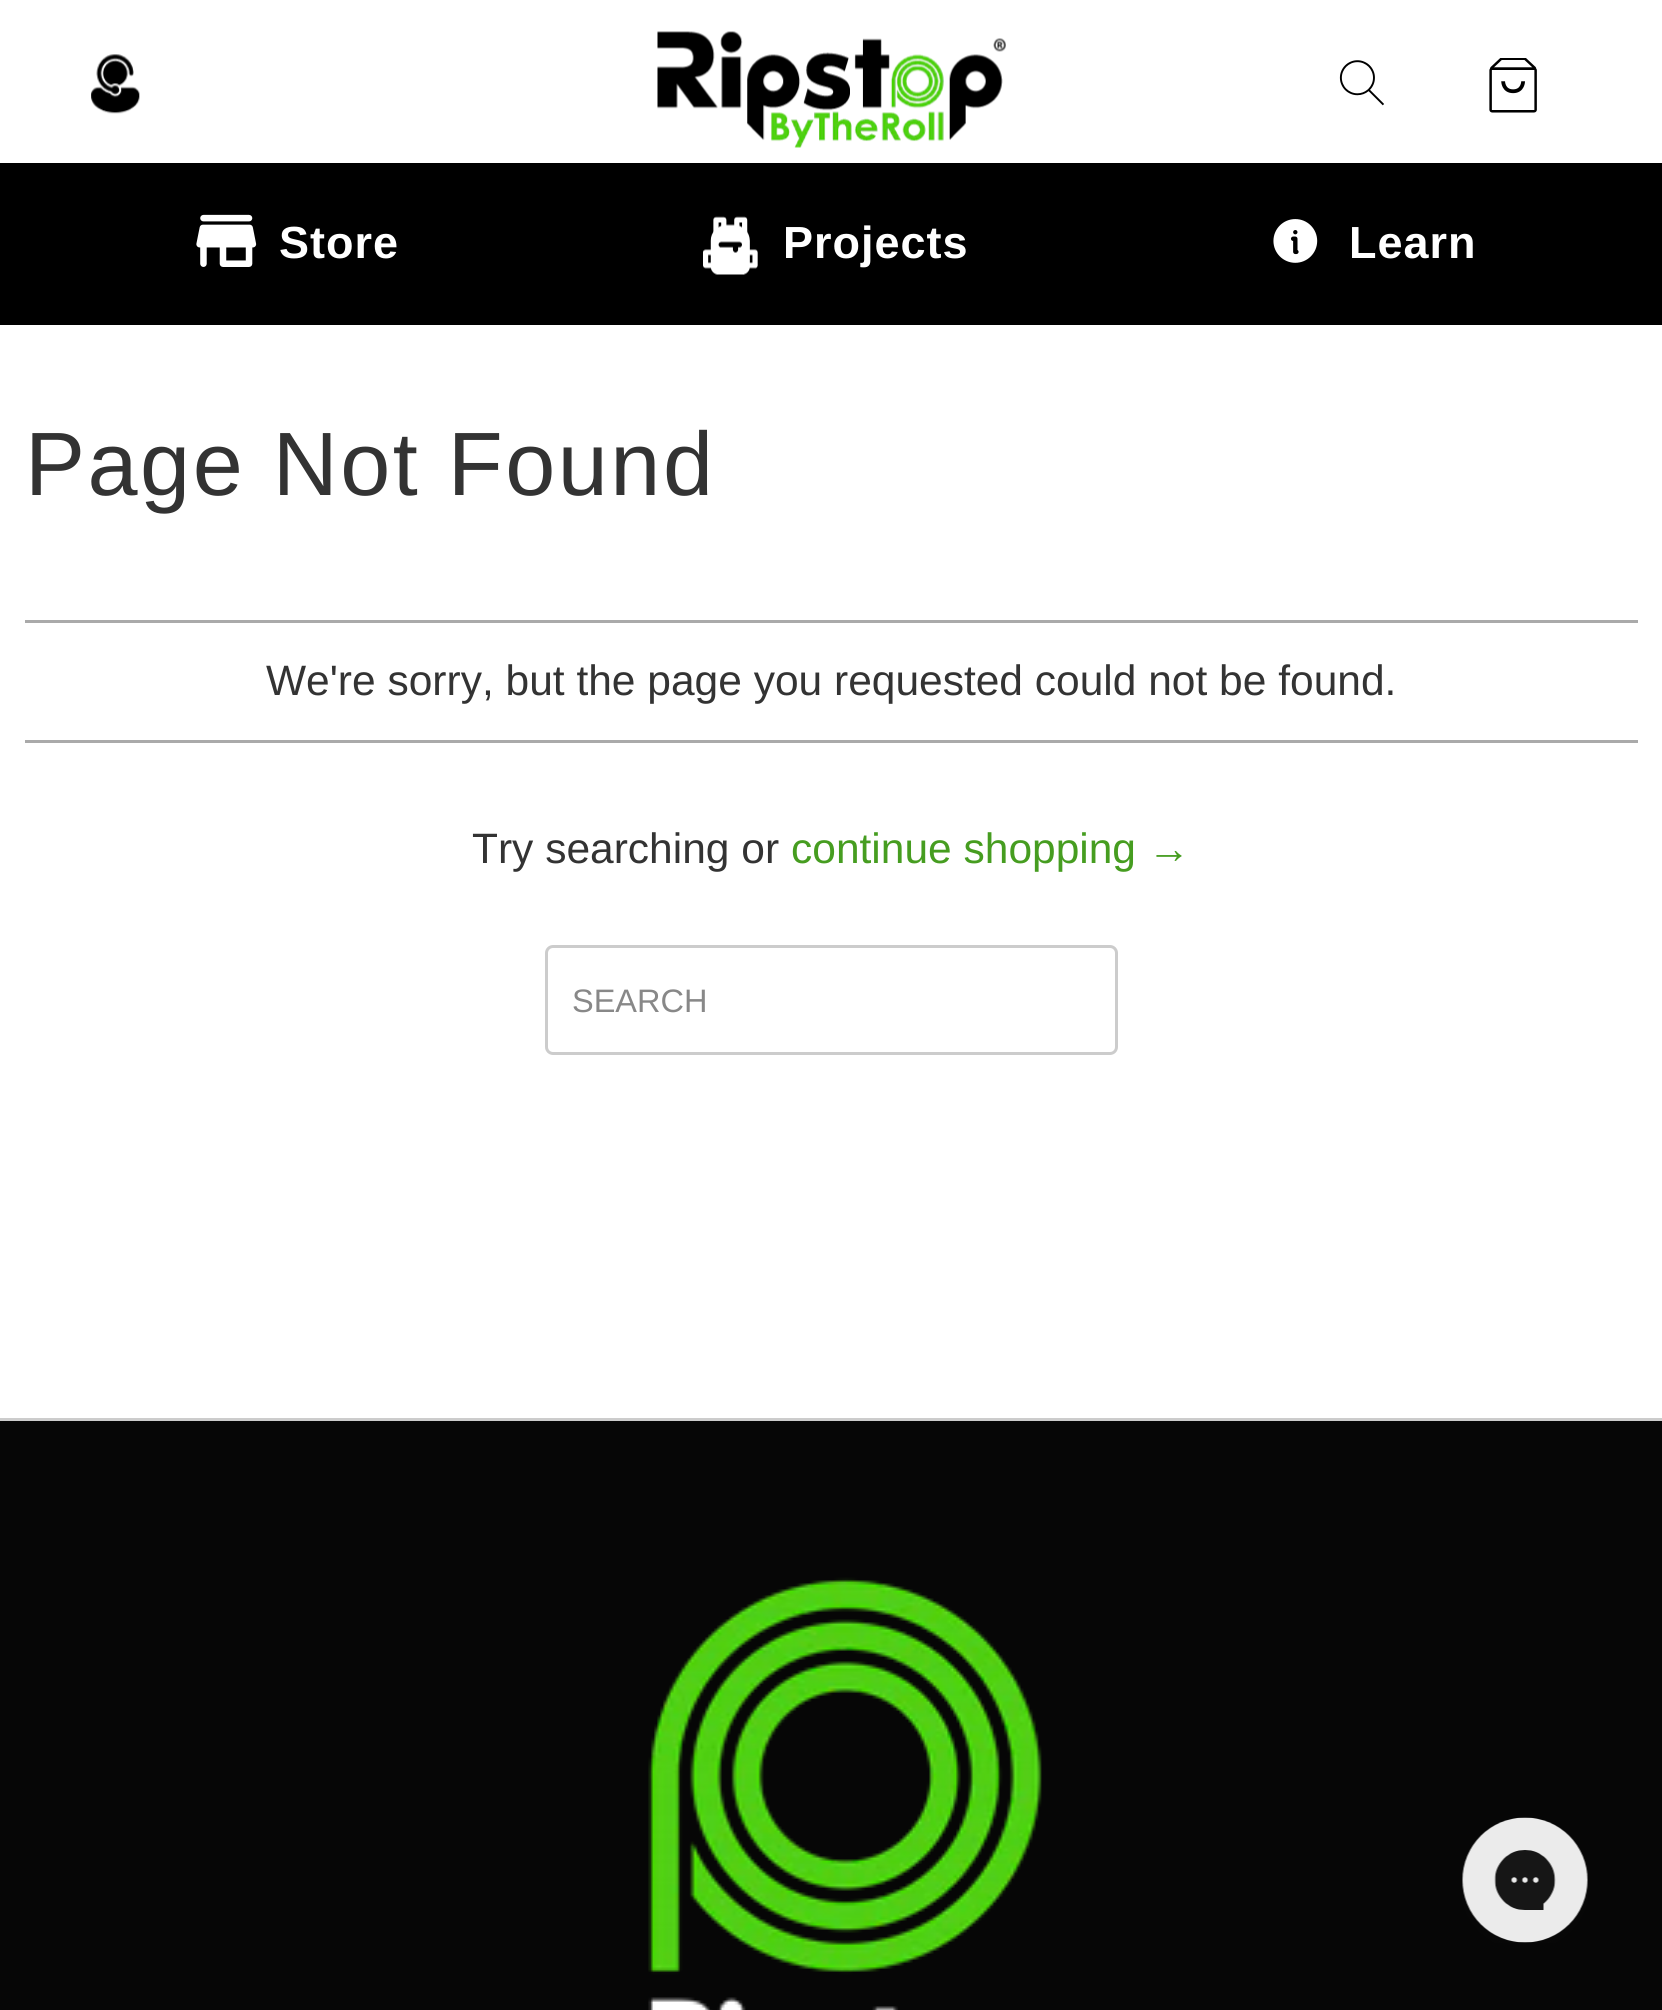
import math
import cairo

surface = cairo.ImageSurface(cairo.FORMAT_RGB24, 1662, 2010)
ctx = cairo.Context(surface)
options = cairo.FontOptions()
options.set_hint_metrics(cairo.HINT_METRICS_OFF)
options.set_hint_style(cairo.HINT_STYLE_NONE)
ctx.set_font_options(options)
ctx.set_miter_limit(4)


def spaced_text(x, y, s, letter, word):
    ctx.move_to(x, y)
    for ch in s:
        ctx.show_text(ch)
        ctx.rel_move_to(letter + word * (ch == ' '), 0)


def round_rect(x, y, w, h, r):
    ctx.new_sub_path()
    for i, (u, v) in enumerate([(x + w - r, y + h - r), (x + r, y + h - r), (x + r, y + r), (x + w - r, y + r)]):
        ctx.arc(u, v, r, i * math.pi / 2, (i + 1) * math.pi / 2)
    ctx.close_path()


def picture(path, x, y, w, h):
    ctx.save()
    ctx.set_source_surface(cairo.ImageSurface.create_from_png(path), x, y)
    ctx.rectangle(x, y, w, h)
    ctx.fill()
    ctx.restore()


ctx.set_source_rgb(1, 1, 1)
ctx.paint()
picture("img1.png", 91, 54, 49, 60)
picture("img2.png", 657, 31, 349, 117)
picture("img3.png", 1339, 60, 45, 46)
picture("img4.png", 1489, 58, 48, 55)
ctx.set_source_rgb(0, 0, 0)
ctx.rectangle(0, 163, 1662, 162)
ctx.fill()
picture("img5.png", 196, 214, 61, 53)
ctx.select_font_face("Liberation Sans", cairo.FONT_SLANT_NORMAL, cairo.FONT_WEIGHT_BOLD)
ctx.set_font_size(45)
ctx.set_source_rgb(1, 1, 1)
spaced_text(279, 258, "Store", 1, 0)
picture("img6.png", 703, 216, 55, 59)
spaced_text(783, 258, "Projects", 1, 0)
picture("img7.png", 1273, 219, 45, 44)
spaced_text(1349, 258, "Learn", 1, 0)
ctx.select_font_face("Liberation Sans")
ctx.set_font_size(90)
ctx.set_source_rgb(0.2, 0.2, 0.2)
spaced_text(25, 495, "Page Not Found", 2.5, 0)
ctx.set_source_rgb(0.667, 0.667, 0.667)
ctx.rectangle(25, 620, 1613, 3)
ctx.fill()
ctx.rectangle(25, 740, 1613, 3)
ctx.fill()
ctx.set_font_size(42.5)
ctx.set_source_rgb(0.2, 0.2, 0.2)
ctx.move_to(266, 695)
ctx.show_text("We're sorry, but the page you requested could not be found.")
ctx.move_to(472, 863)
ctx.show_text("Try searching or")
ctx.set_source_rgb(0.275, 0.616, 0.125)
ctx.move_to(791, 863)
ctx.show_text("continue shopping →")
round_rect(546.5, 946.5, 570, 107, 6.5)
ctx.set_source_rgb(0.8, 0.8, 0.8)
ctx.set_line_width(3)
ctx.stroke()
ctx.set_font_size(32.5)
ctx.set_source_rgb(0.533, 0.533, 0.533)
ctx.move_to(572, 1012)
ctx.show_text("SEARCH")
ctx.set_source_rgb(0.024, 0.024, 0.024)
ctx.rectangle(0, 1421, 1662, 589)
ctx.fill()
ctx.set_source_rgb(0.8, 0.8, 0.8)
ctx.rectangle(0, 1418, 1662, 3)
ctx.fill()
picture("img8.png", 648, 1577, 394, 433)
picture("img9.png", 1462, 1817, 126, 126)
surface.write_to_png("page.png")
